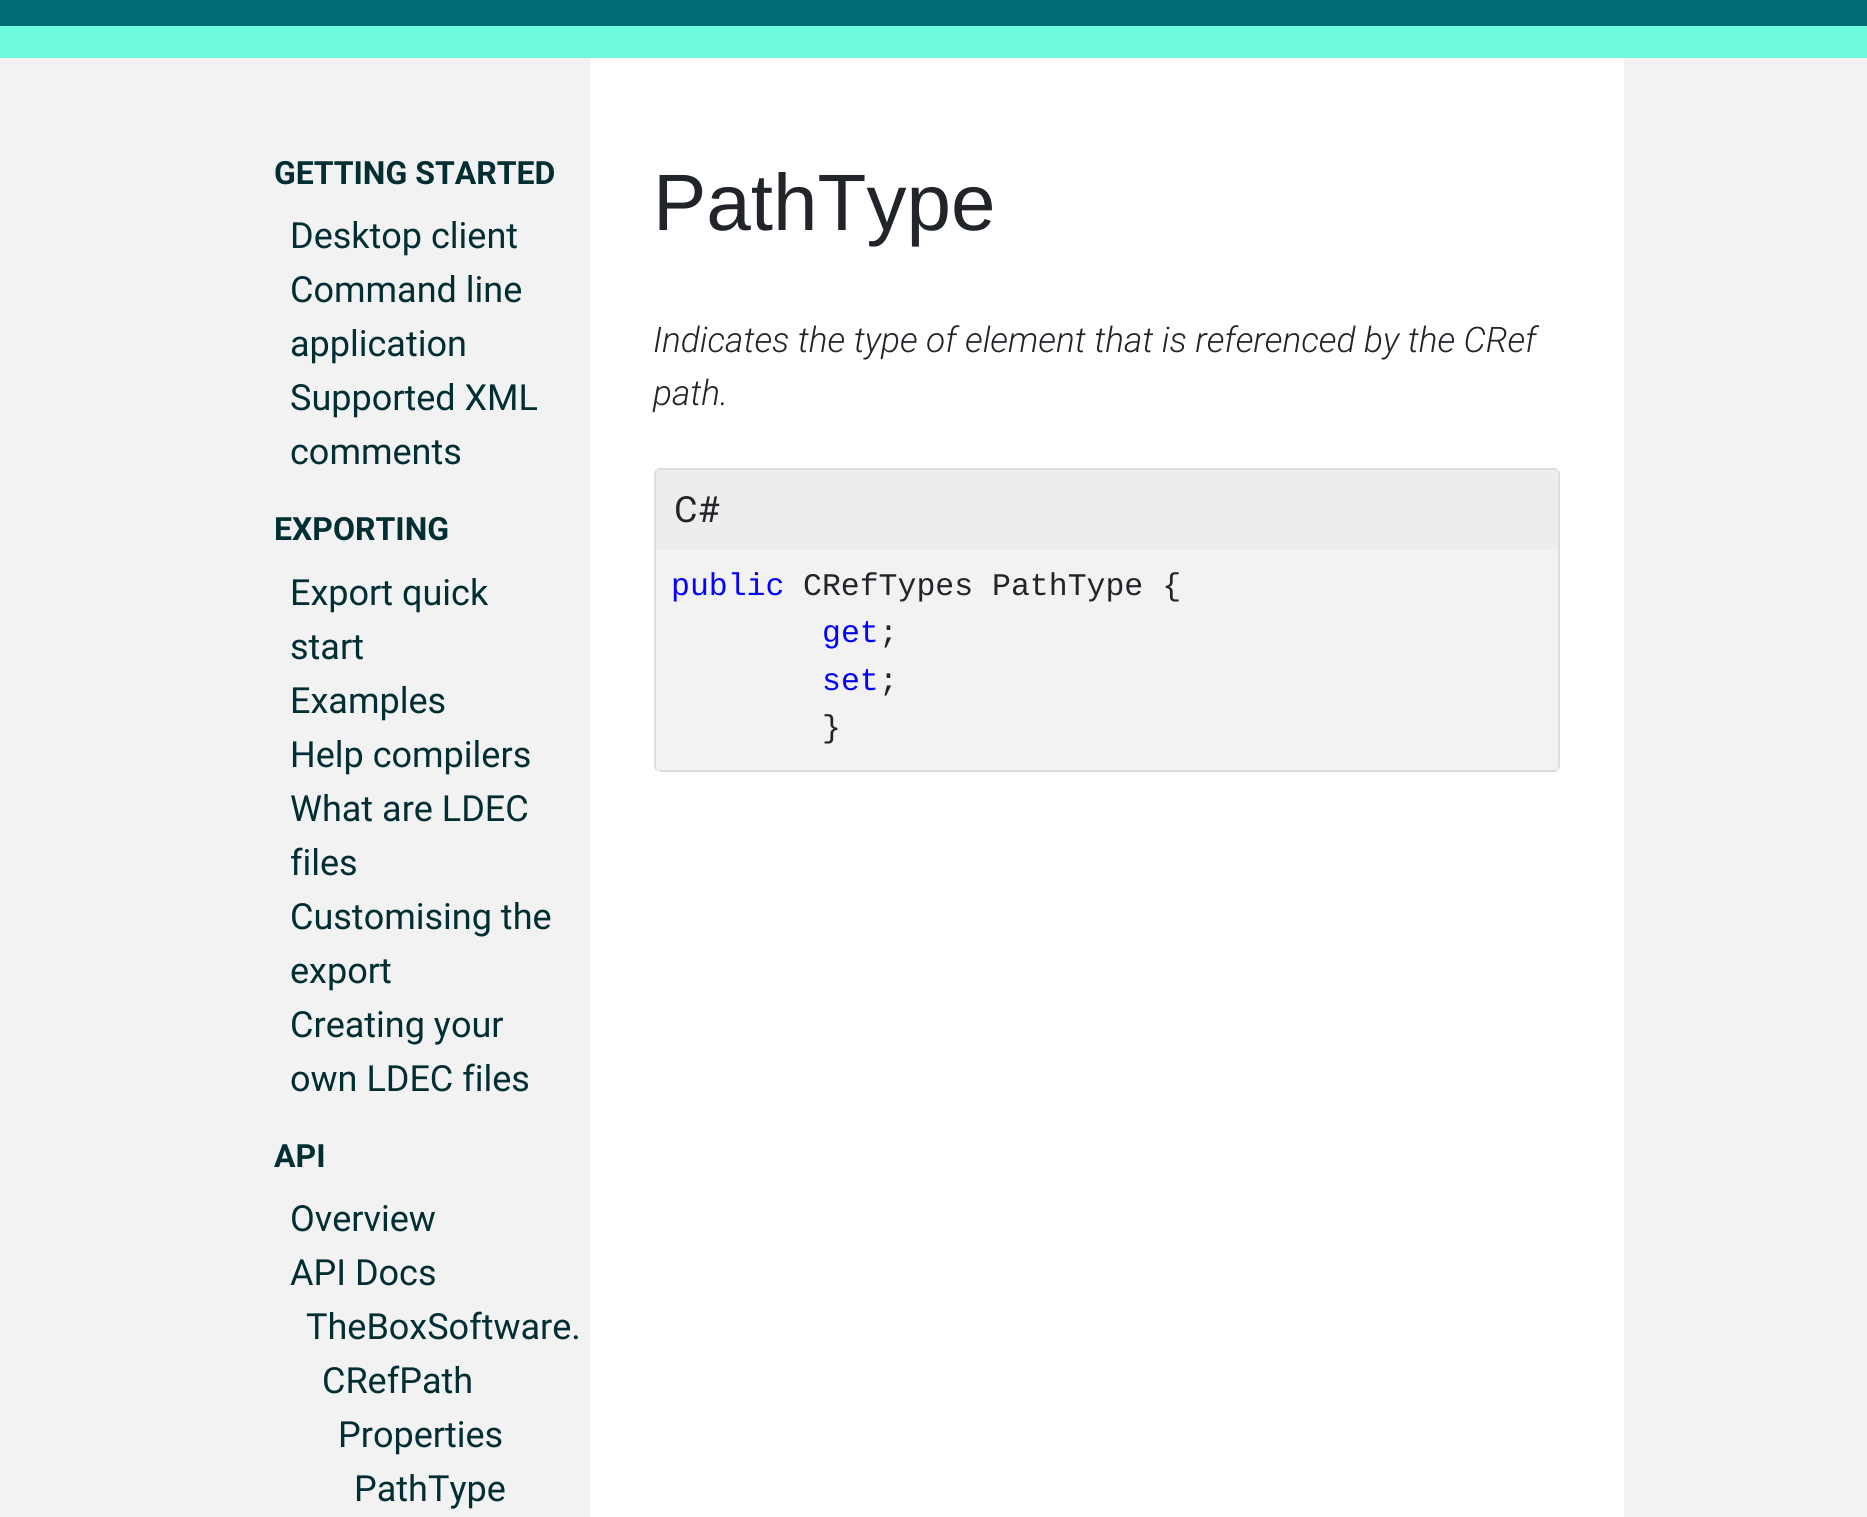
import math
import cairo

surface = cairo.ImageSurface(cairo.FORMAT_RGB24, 1867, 1517)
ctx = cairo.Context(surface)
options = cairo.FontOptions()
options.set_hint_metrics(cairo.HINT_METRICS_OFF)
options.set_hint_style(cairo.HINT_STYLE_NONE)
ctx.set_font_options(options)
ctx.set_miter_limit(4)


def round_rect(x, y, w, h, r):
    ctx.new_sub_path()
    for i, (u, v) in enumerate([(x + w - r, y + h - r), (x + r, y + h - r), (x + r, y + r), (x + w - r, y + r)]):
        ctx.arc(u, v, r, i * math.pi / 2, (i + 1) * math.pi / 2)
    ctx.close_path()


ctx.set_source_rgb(0.949, 0.949, 0.949)
ctx.paint()
ctx.set_source_rgb(0, 0.424, 0.459)
ctx.rectangle(0, 0, 1867, 26)
ctx.fill()
ctx.set_source_rgb(0.431, 0.969, 0.863)
ctx.rectangle(0, 26, 1867, 32)
ctx.fill()
ctx.select_font_face("Roboto", cairo.FONT_SLANT_NORMAL, cairo.FONT_WEIGHT_BOLD)
ctx.set_font_size(32)
ctx.set_source_rgb(0, 0.18, 0.2)
ctx.move_to(274, 184)
ctx.show_text("GETTING STARTED")
ctx.select_font_face("Roboto")
ctx.set_font_size(36)
ctx.move_to(290, 248)
ctx.show_text("Desktop client")
ctx.move_to(290, 302)
ctx.show_text("Command line")
ctx.move_to(290, 356)
ctx.show_text("application")
ctx.move_to(290, 410)
ctx.show_text("Supported XML")
ctx.move_to(290, 464)
ctx.show_text("comments")
ctx.select_font_face("Roboto", cairo.FONT_SLANT_NORMAL, cairo.FONT_WEIGHT_BOLD)
ctx.set_font_size(32)
ctx.move_to(274, 540)
ctx.show_text("EXPORTING")
ctx.select_font_face("Roboto")
ctx.set_font_size(36)
ctx.move_to(290, 605)
ctx.show_text("Export quick")
ctx.move_to(290, 659)
ctx.show_text("start")
ctx.move_to(290, 713)
ctx.show_text("Examples")
ctx.move_to(290, 767)
ctx.show_text("Help compilers")
ctx.move_to(290, 821)
ctx.show_text("What are LDEC")
ctx.move_to(290, 875)
ctx.show_text("files")
ctx.move_to(290, 929)
ctx.show_text("Customising the")
ctx.move_to(290, 983)
ctx.show_text("export")
ctx.move_to(290, 1037)
ctx.show_text("Creating your")
ctx.move_to(290, 1091)
ctx.show_text("own LDEC files")
ctx.select_font_face("Roboto", cairo.FONT_SLANT_NORMAL, cairo.FONT_WEIGHT_BOLD)
ctx.set_font_size(32)
ctx.move_to(274, 1167)
ctx.show_text("API")
ctx.select_font_face("Roboto")
ctx.set_font_size(36)
ctx.move_to(290, 1231)
ctx.show_text("Overview")
ctx.move_to(290, 1285)
ctx.show_text("API Docs")
ctx.move_to(306, 1339)
ctx.show_text("TheBoxSoftware.")
ctx.move_to(322, 1393)
ctx.show_text("CRefPath")
ctx.move_to(338, 1447)
ctx.show_text("Properties")
ctx.move_to(354, 1501)
ctx.show_text("PathType")
ctx.set_source_rgb(1, 1, 1)
ctx.rectangle(590, 58, 1034, 1459)
ctx.fill()
ctx.select_font_face("Liberation Sans")
ctx.set_font_size(80)
ctx.set_source_rgb(0.129, 0.145, 0.161)
ctx.move_to(653, 230)
ctx.show_text("PathType")
ctx.select_font_face("Roboto Light", cairo.FONT_SLANT_ITALIC)
ctx.set_font_size(35.2)
ctx.move_to(653, 352)
ctx.show_text("Indicates the type of element that is referenced by the CRef")
ctx.move_to(653, 405)
ctx.show_text("path.")
ctx.set_source_rgb(0.949, 0.949, 0.949)
round_rect(654, 468, 906, 304, 6)
ctx.fill()
ctx.set_source_rgba(0, 0.18, 0.2, 0.1)
ctx.set_fill_rule(cairo.FILL_RULE_EVEN_ODD)
ctx.new_path()
ctx.move_to(660, 468)
ctx.line_to(1554, 468)
ctx.curve_to(1557, 468, 1560, 471, 1560, 474)
ctx.line_to(1560, 766)
ctx.curve_to(1560, 769, 1557, 772, 1554, 772)
ctx.line_to(660, 772)
ctx.curve_to(657, 772, 654, 769, 654, 766)
ctx.line_to(654, 474)
ctx.curve_to(654, 471, 657, 468, 660, 468)
ctx.close_path()
ctx.move_to(660, 470)
ctx.line_to(1554, 470)
ctx.curve_to(1556, 470, 1558, 472, 1558, 474)
ctx.line_to(1558, 766)
ctx.curve_to(1558, 769, 1556, 772, 1554, 772)
ctx.line_to(660, 772)
ctx.curve_to(658, 772, 656, 769, 656, 766)
ctx.line_to(656, 474)
ctx.curve_to(656, 472, 658, 470, 660, 470)
ctx.close_path()
ctx.fill()
ctx.set_source_rgb(0.929, 0.929, 0.929)
ctx.rectangle(656, 470, 902, 80)
ctx.fill()
ctx.select_font_face("Roboto")
ctx.set_font_size(36)
ctx.set_source_rgb(0.129, 0.145, 0.161)
ctx.move_to(674, 522)
ctx.show_text("C#")
ctx.set_source_rgb(0.949, 0.949, 0.949)
round_rect(656, 550, 902, 222, 6)
ctx.fill()
ctx.set_source_rgba(0, 0.18, 0.2, 0.1)
ctx.rectangle(660, 770, 896, 2)
ctx.fill()
ctx.select_font_face("Liberation Mono")
ctx.set_font_size(31.5)
ctx.set_source_rgb(0.004, 0.004, 0.992)
ctx.move_to(671, 595)
ctx.show_text("public")
ctx.set_source_rgb(0.129, 0.145, 0.161)
ctx.move_to(803, 595)
ctx.show_text("CRefTypes PathType {")
ctx.set_source_rgb(0.004, 0.004, 0.992)
ctx.move_to(822, 642)
ctx.show_text("get")
ctx.set_source_rgb(0.129, 0.145, 0.161)
ctx.move_to(879, 642)
ctx.show_text(";")
ctx.set_source_rgb(0.004, 0.004, 0.992)
ctx.move_to(822, 690)
ctx.show_text("set")
ctx.set_source_rgb(0.129, 0.145, 0.161)
ctx.move_to(879, 690)
ctx.show_text(";")
ctx.move_to(822, 737)
ctx.show_text("}")
surface.write_to_png("page.png")
